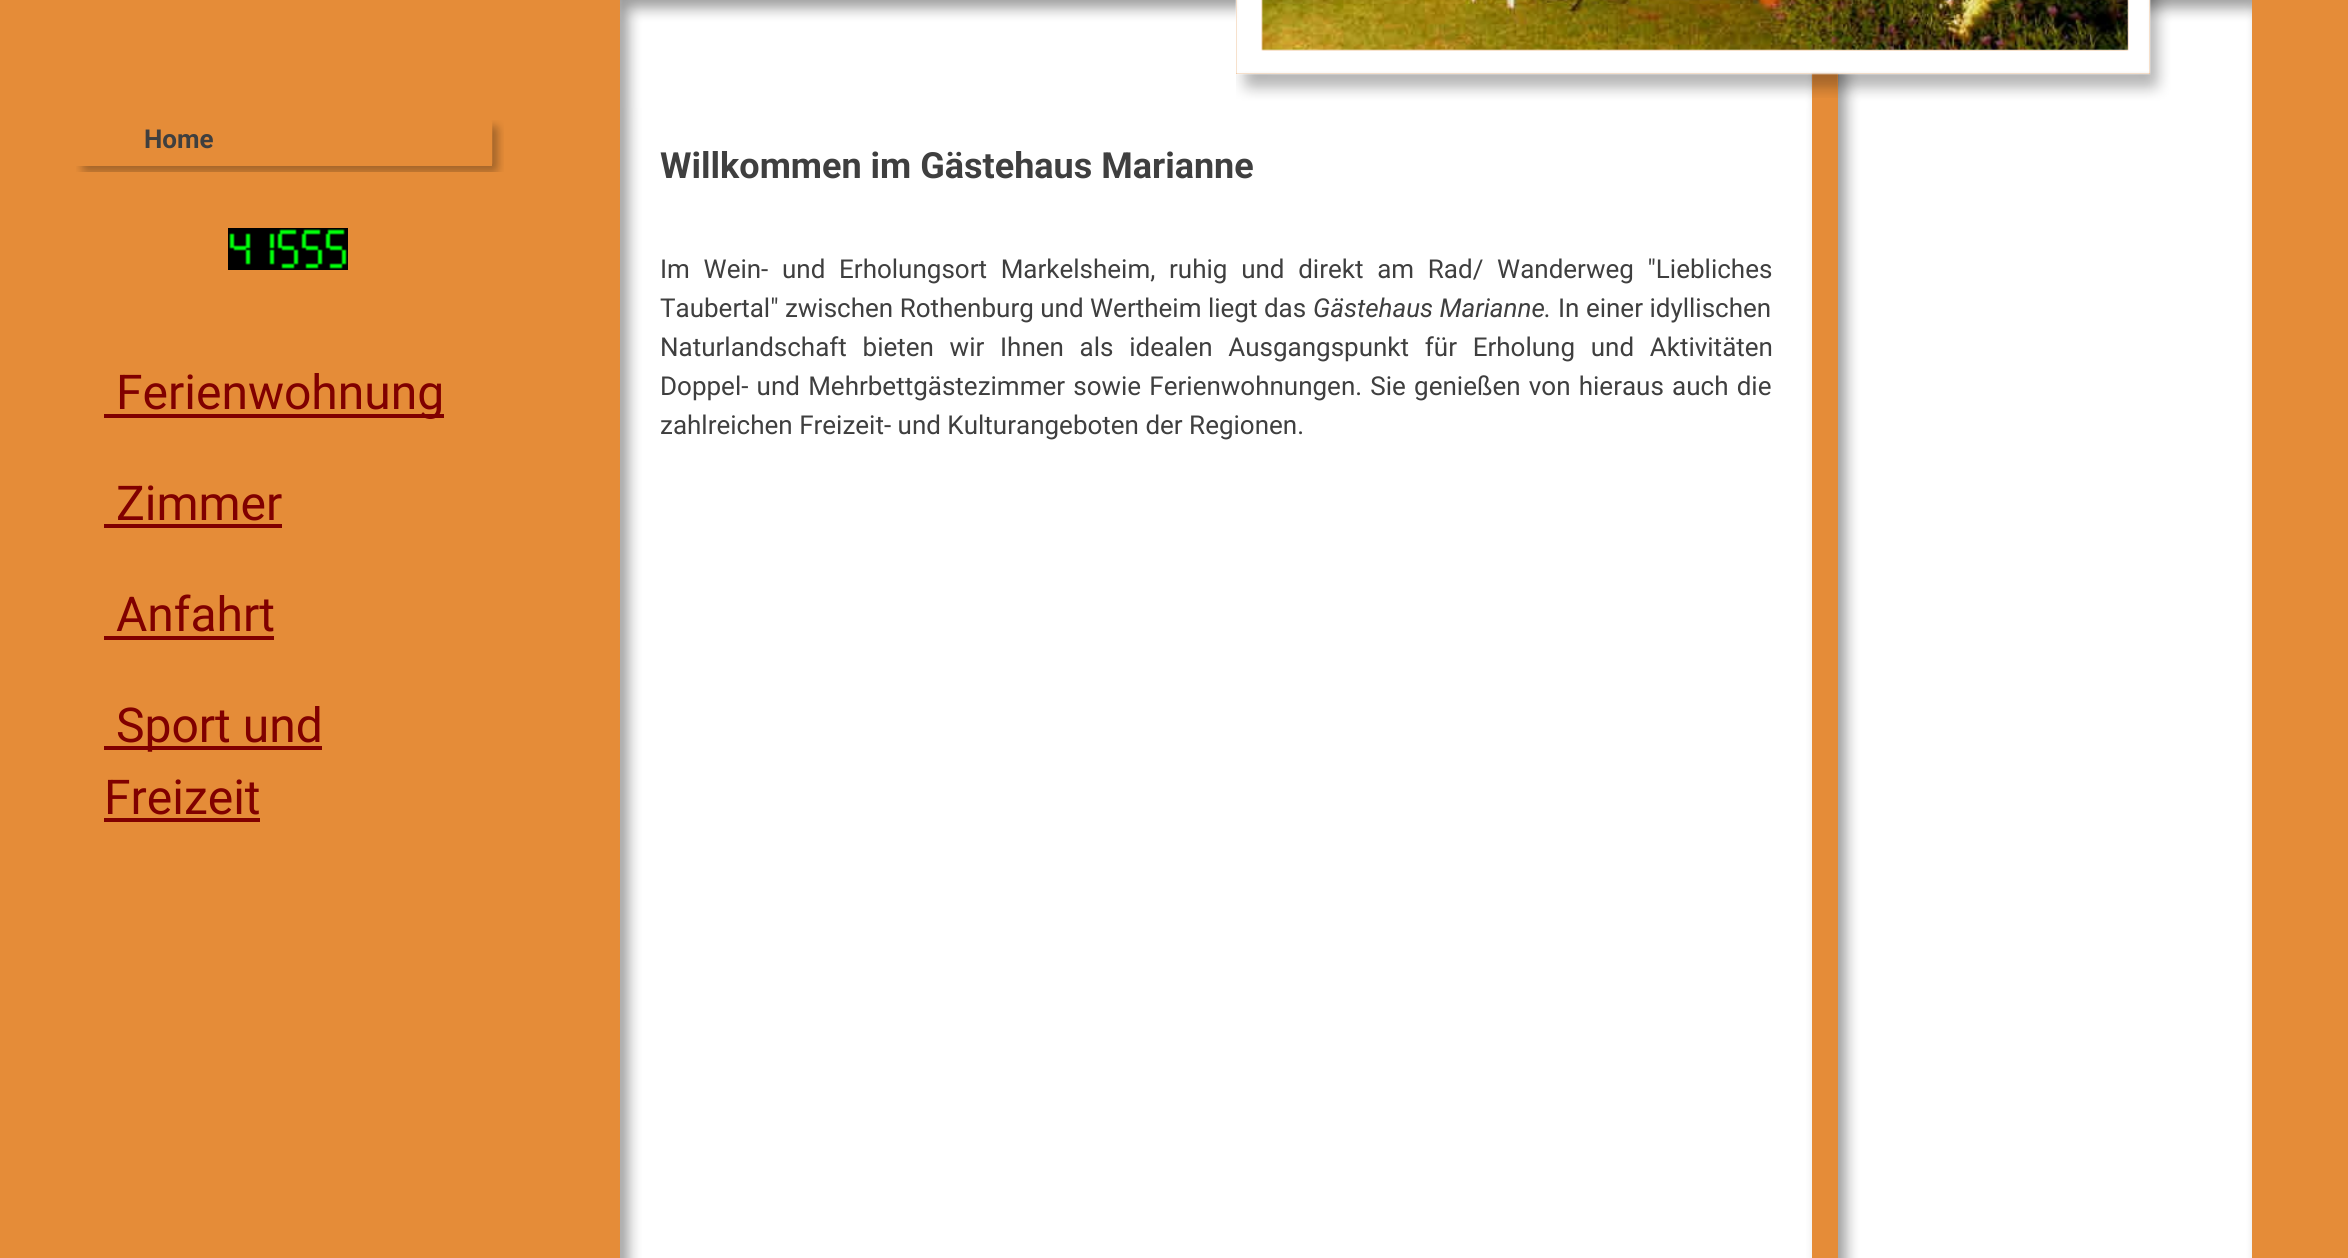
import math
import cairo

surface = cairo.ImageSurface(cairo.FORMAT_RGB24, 2348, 1258)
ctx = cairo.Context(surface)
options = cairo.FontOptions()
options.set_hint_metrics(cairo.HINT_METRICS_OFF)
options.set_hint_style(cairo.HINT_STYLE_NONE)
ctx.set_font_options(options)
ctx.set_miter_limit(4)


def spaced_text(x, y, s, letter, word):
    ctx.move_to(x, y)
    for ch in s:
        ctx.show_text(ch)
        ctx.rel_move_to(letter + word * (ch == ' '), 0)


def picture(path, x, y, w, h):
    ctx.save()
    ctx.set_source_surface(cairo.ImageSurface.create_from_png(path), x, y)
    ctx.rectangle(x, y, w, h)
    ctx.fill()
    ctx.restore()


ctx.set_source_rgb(0.898, 0.549, 0.22)
ctx.paint()
ctx.set_source_rgb(1, 1, 1)
ctx.rectangle(620, 0, 616, 108)
ctx.fill()
picture("img1.png", 620, 0, 616, 108)
picture("img3.png", 1262, 0, 866, 50)
ctx.rectangle(2150, 0, 102, 108)
ctx.fill()
picture("img4.png", 2150, 0, 102, 108)
ctx.rectangle(1236, 74, 576, 34)
ctx.fill()
picture("img5.png", 1236, 74, 576, 34)
ctx.rectangle(1838, 74, 312, 34)
ctx.fill()
picture("img6.png", 1838, 74, 312, 34)
picture("img2.png", 1235, 0, 916, 98)
picture("img7.png", 76, 120, 428, 52)
ctx.set_source_rgb(0.898, 0.549, 0.22)
ctx.rectangle(76, 122, 416, 44)
ctx.fill()
ctx.select_font_face("Roboto", cairo.FONT_SLANT_NORMAL, cairo.FONT_WEIGHT_BOLD)
ctx.set_font_size(26)
ctx.set_source_rgb(0.247, 0.247, 0.247)
ctx.move_to(144, 148)
ctx.show_text("Home")
picture("img8.png", 228, 228, 120, 42)
ctx.set_source_rgb(0.502, 0, 0)
ctx.rectangle(104, 414, 340, 4)
ctx.fill()
ctx.select_font_face("Roboto")
ctx.set_font_size(48)
ctx.move_to(116, 409)
ctx.show_text("Ferienwohnung")
ctx.move_to(116, 520)
ctx.show_text("Zimmer")
ctx.rectangle(104, 524, 178, 4)
ctx.fill()
ctx.move_to(116, 631)
ctx.show_text("Anfahrt")
ctx.rectangle(104, 636, 170, 4)
ctx.fill()
ctx.rectangle(104, 746, 218, 4)
ctx.fill()
ctx.move_to(116, 742)
ctx.show_text("Sport und")
ctx.move_to(104, 814)
ctx.show_text("Freizeit")
ctx.rectangle(104, 818, 156, 4)
ctx.fill()
ctx.set_source_rgb(1, 1, 1)
ctx.rectangle(620, 108, 1192, 1150)
ctx.fill()
picture("img9.png", 620, 108, 1192, 1150)
ctx.select_font_face("Roboto", cairo.FONT_SLANT_NORMAL, cairo.FONT_WEIGHT_BOLD)
ctx.set_font_size(36)
ctx.set_source_rgb(0.247, 0.247, 0.247)
ctx.move_to(660, 178)
ctx.show_text("Willkommen im Gästehaus Marianne")
ctx.select_font_face("Roboto")
ctx.set_font_size(26)
spaced_text(660, 278, "Im Wein- und Erholungsort Markelsheim, ruhig und direkt am Rad/ Wanderweg \"Liebliches", 0, 7.25)
ctx.move_to(660, 317)
ctx.show_text("Taubertal\" zwischen Rothenburg und Wertheim liegt das")
ctx.select_font_face("Roboto", cairo.FONT_SLANT_ITALIC)
ctx.move_to(1313, 317)
ctx.show_text("Gästehaus Marianne.")
ctx.select_font_face("Roboto")
ctx.move_to(1558, 317)
ctx.show_text("In einer idyllischen")
spaced_text(660, 356, "Naturlandschaft bieten wir Ihnen als idealen Ausgangspunkt für Erholung und Aktivitäten", 0, 9.25)
spaced_text(660, 395, "Doppel- und Mehrbettgästezimmer sowie Ferienwohnungen. Sie genießen von hieraus auch die", 0, 1.75)
ctx.move_to(660, 434)
ctx.show_text("zahlreichen Freizeit- und Kulturangeboten der Regionen.")
ctx.set_source_rgb(1, 1, 1)
ctx.rectangle(1838, 108, 414, 1150)
ctx.fill()
picture("img10.png", 1838, 108, 414, 1150)
surface.write_to_png("page.png")
